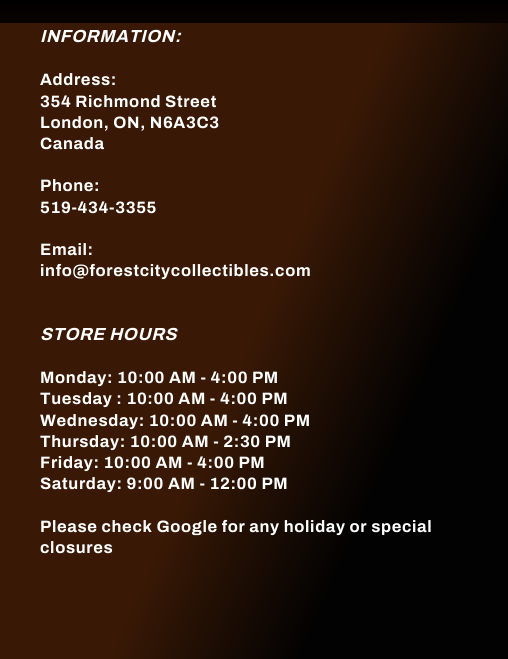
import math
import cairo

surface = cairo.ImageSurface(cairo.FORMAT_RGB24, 508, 659)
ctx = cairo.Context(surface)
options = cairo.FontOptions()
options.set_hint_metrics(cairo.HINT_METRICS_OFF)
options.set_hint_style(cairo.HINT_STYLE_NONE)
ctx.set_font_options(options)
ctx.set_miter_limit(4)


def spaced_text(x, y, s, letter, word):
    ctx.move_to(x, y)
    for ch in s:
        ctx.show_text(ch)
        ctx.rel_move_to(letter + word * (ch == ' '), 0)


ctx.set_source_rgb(1, 1, 1)
ctx.paint()
gradient = cairo.LinearGradient(254, 0, 254, 659)
gradient.add_color_stop_rgba(0, 0, 0, 0, 1)
gradient.add_color_stop_rgba(1, 1, 0.329, 0.031, 1)
ctx.set_source(gradient)
ctx.rectangle(0, 0, 508, 23)
ctx.fill()
gradient = cairo.LinearGradient(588, 478, -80, 181)
gradient.add_color_stop_rgba(0.26, 0.008, 0.008, 0.008, 1)
gradient.add_color_stop_rgba(0.5, 0.224, 0.098, 0.02, 1)
ctx.set_source(gradient)
ctx.rectangle(0, 23, 508, 636)
ctx.fill()
ctx.select_font_face("Archivo", cairo.FONT_SLANT_ITALIC, cairo.FONT_WEIGHT_BOLD)
ctx.set_font_size(17.5)
ctx.set_source_rgb(1, 1, 1)
spaced_text(40, 42, "INFORMATION:", 0.65, 0)
ctx.select_font_face("Archivo", cairo.FONT_SLANT_NORMAL, cairo.FONT_WEIGHT_BOLD)
ctx.set_font_size(16.5)
spaced_text(40, 85, "Address:", 0.65, 0)
spaced_text(40, 107, "354 Richmond Street", 0.65, 0)
spaced_text(40, 128, "London, ON, N6A3C3", 0.65, 0)
spaced_text(40, 149, "Canada", 0.65, 0)
spaced_text(40, 191, "Phone:", 0.65, 0)
spaced_text(40, 213, "519-434-3355", 0.65, 0)
spaced_text(40, 255, "Email:", 0.65, 0)
spaced_text(40, 276, "info@forestcitycollectibles.com", 0.65, 0)
ctx.select_font_face("Archivo", cairo.FONT_SLANT_ITALIC, cairo.FONT_WEIGHT_BOLD)
ctx.set_font_size(17.5)
spaced_text(40, 340, "STORE HOURS", 0.65, 0)
ctx.select_font_face("Archivo", cairo.FONT_SLANT_NORMAL, cairo.FONT_WEIGHT_BOLD)
ctx.set_font_size(16.5)
spaced_text(40, 383, "Monday: 10:00 AM - 4:00 PM", 0.65, 0)
spaced_text(40, 404, "Tuesday : 10:00 AM - 4:00 PM", 0.65, 0)
spaced_text(40, 426, "Wednesday: 10:00 AM - 4:00 PM", 0.65, 0)
spaced_text(40, 447, "Thursday: 10:00 AM - 2:30 PM", 0.65, 0)
spaced_text(40, 468, "Friday: 10:00 AM - 4:00 PM", 0.65, 0)
spaced_text(40, 489, "Saturday: 9:00 AM - 12:00 PM", 0.65, 0)
spaced_text(40, 532, "Please check Google for any holiday or special", 0.65, 0)
spaced_text(40, 553, "closures", 0.65, 0)
surface.write_to_png("page.png")
